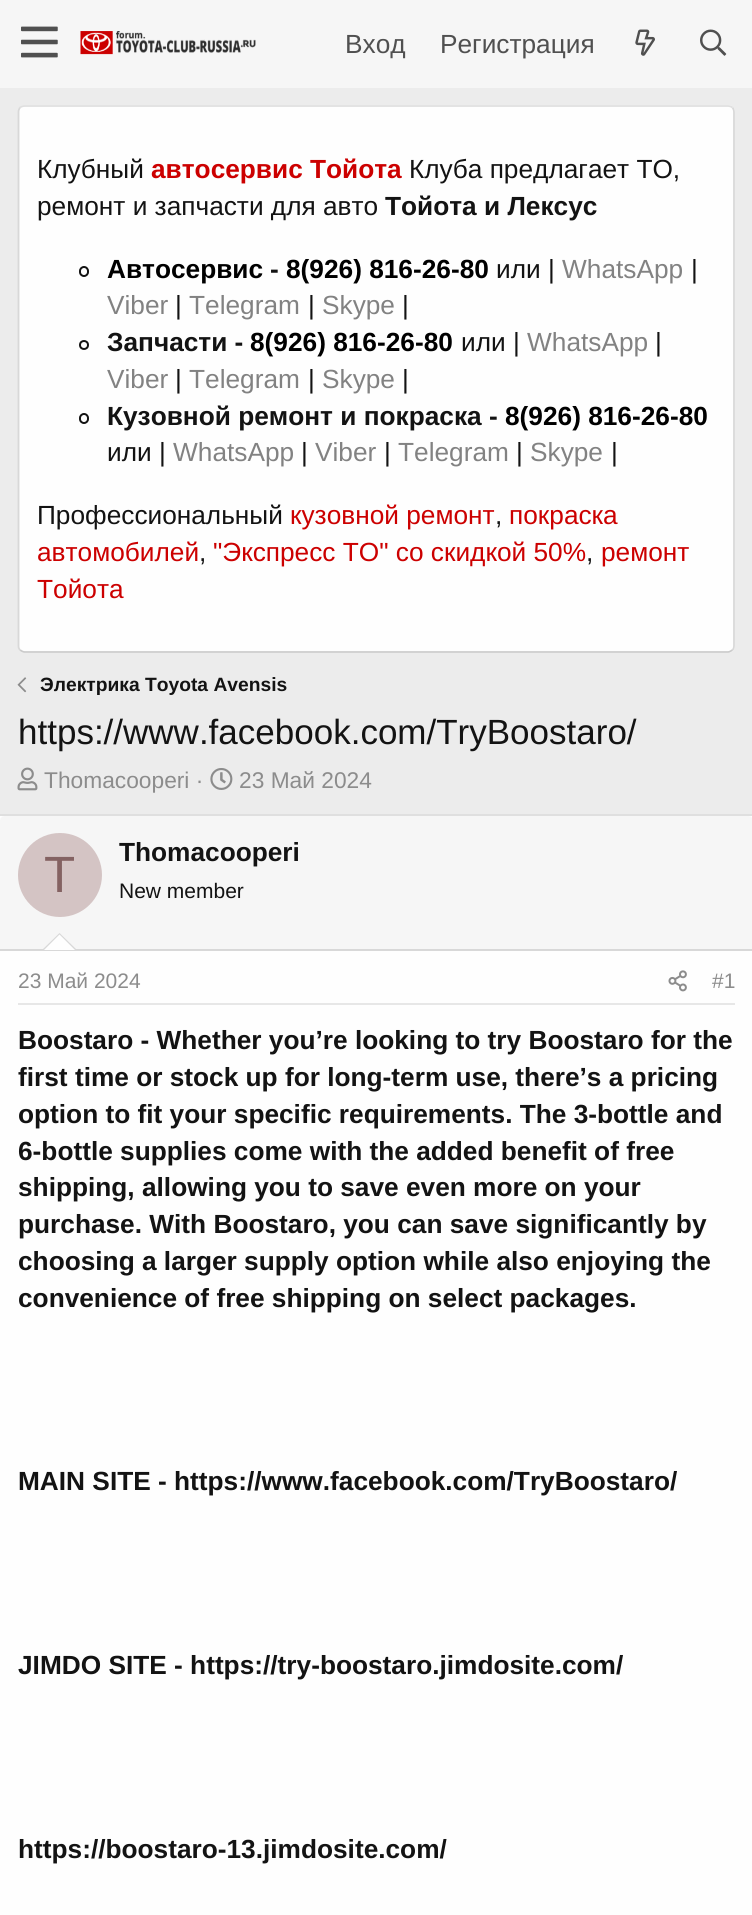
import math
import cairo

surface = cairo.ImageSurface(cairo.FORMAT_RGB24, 752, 1915)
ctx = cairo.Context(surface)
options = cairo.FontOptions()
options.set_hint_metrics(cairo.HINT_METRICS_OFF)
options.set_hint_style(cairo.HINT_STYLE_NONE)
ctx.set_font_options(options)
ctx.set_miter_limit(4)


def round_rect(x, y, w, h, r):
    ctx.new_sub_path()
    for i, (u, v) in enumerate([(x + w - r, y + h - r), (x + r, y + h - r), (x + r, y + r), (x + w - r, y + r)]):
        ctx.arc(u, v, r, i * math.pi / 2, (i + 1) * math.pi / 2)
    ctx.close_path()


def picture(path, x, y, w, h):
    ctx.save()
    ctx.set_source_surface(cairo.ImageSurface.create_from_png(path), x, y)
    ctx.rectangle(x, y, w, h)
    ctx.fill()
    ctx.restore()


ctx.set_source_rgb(0.925, 0.925, 0.925)
ctx.paint()
ctx.set_source_rgb(0.961, 0.961, 0.961)
ctx.rectangle(0, 0, 752, 88)
ctx.fill()
picture("img1.png", 21, 26, 37, 32)
picture("img2.png", 80, 31, 176, 24)
ctx.select_font_face("Liberation Sans")
ctx.set_font_size(26.25)
ctx.set_source_rgb(0.314, 0.314, 0.314)
ctx.move_to(345, 53)
ctx.show_text("Вход")
ctx.move_to(440, 53)
ctx.show_text("Регистрация")
picture("img3.png", 635, 29, 20, 27)
picture("img4.png", 700, 29, 27, 27)
ctx.set_source_rgb(0.996, 0.996, 0.996)
round_rect(18, 105, 717, 548, 7)
ctx.fill()
ctx.new_path()
ctx.move_to(20, 107.5)
ctx.curve_to(21.5, 106.5, 23, 106, 24.5, 106)
ctx.line_to(728, 106)
ctx.curve_to(729.5, 106, 731, 106.5, 732.5, 107.5)
ctx.set_source_rgb(0.875, 0.875, 0.875)
ctx.set_line_width(1.8)
ctx.stroke()
ctx.new_path()
ctx.move_to(732.5, 107.5)
ctx.curve_to(733.5, 109, 734, 110.5, 734, 112)
ctx.line_to(734, 646)
ctx.curve_to(734, 647.5, 733.5, 649, 732.5, 650)
ctx.set_source_rgb(0.847, 0.847, 0.847)
ctx.stroke()
ctx.new_path()
ctx.move_to(732.5, 650)
ctx.curve_to(731, 651, 729.5, 652, 728, 652)
ctx.line_to(24.5, 652)
ctx.curve_to(23, 652, 21.5, 651, 20, 650)
ctx.set_source_rgb(0.796, 0.796, 0.796)
ctx.stroke()
ctx.new_path()
ctx.move_to(20, 650)
ctx.curve_to(19, 649, 18.5, 647.5, 18.5, 646)
ctx.line_to(18.5, 112)
ctx.curve_to(18.5, 110.5, 19, 109, 20, 107.5)
ctx.set_source_rgb(0.847, 0.847, 0.847)
ctx.stroke()
ctx.set_source_rgb(0.078, 0.078, 0.078)
ctx.move_to(37, 178)
ctx.show_text("Клубный")
ctx.select_font_face("Liberation Sans", cairo.FONT_SLANT_NORMAL, cairo.FONT_WEIGHT_BOLD)
ctx.set_source_rgb(0.8, 0, 0)
ctx.move_to(151, 178)
ctx.show_text("автосервис Тойота")
ctx.select_font_face("Liberation Sans")
ctx.set_source_rgb(0.078, 0.078, 0.078)
ctx.move_to(409, 178)
ctx.show_text("Клуба предлагает ТО,")
ctx.move_to(37, 215)
ctx.show_text("ремонт и запчасти для авто")
ctx.select_font_face("Liberation Sans", cairo.FONT_SLANT_NORMAL, cairo.FONT_WEIGHT_BOLD)
ctx.move_to(385, 215)
ctx.show_text("Тойота и Лексус")
round_rect(80, 267, 8, 9, 4)
ctx.set_line_width(2)
ctx.stroke()
ctx.set_source_rgb(0, 0, 0)
ctx.move_to(107, 278)
ctx.show_text("Автосервис")
ctx.set_source_rgb(0.078, 0.078, 0.078)
ctx.move_to(270, 278)
ctx.show_text("-")
ctx.set_source_rgb(0, 0, 0)
ctx.move_to(286, 278)
ctx.show_text("8(926) 816-26-80")
ctx.select_font_face("Liberation Sans")
ctx.set_source_rgb(0.078, 0.078, 0.078)
ctx.move_to(496, 278)
ctx.show_text("или |")
ctx.set_source_rgb(0.51, 0.51, 0.51)
ctx.move_to(562, 278)
ctx.show_text("WhatsApp")
ctx.set_source_rgb(0.078, 0.078, 0.078)
ctx.move_to(691, 278)
ctx.show_text("|")
ctx.set_source_rgb(0.51, 0.51, 0.51)
ctx.move_to(107, 314)
ctx.show_text("Viber")
ctx.set_source_rgb(0.078, 0.078, 0.078)
ctx.move_to(175, 314)
ctx.show_text("|")
ctx.set_source_rgb(0.51, 0.51, 0.51)
ctx.move_to(189, 314)
ctx.show_text("Telegram")
ctx.set_source_rgb(0.078, 0.078, 0.078)
ctx.move_to(308, 314)
ctx.show_text("|")
ctx.set_source_rgb(0.51, 0.51, 0.51)
ctx.move_to(322, 314)
ctx.show_text("Skype")
ctx.set_source_rgb(0.078, 0.078, 0.078)
ctx.move_to(402, 314)
ctx.show_text("|")
ctx.new_path()
ctx.arc(84, 345, 4, 0, 2 * math.pi)
ctx.stroke()
ctx.select_font_face("Liberation Sans", cairo.FONT_SLANT_NORMAL, cairo.FONT_WEIGHT_BOLD)
ctx.move_to(107, 351)
ctx.show_text("Запчасти -")
ctx.set_source_rgb(0, 0, 0)
ctx.move_to(250, 351)
ctx.show_text("8(926) 816-26-80")
ctx.select_font_face("Liberation Sans")
ctx.set_source_rgb(0.078, 0.078, 0.078)
ctx.move_to(461, 351)
ctx.show_text("или |")
ctx.set_source_rgb(0.51, 0.51, 0.51)
ctx.move_to(527, 351)
ctx.show_text("WhatsApp")
ctx.set_source_rgb(0.078, 0.078, 0.078)
ctx.move_to(655, 351)
ctx.show_text("|")
ctx.set_source_rgb(0.51, 0.51, 0.51)
ctx.move_to(107, 388)
ctx.show_text("Viber")
ctx.set_source_rgb(0.078, 0.078, 0.078)
ctx.move_to(175, 388)
ctx.show_text("|")
ctx.set_source_rgb(0.51, 0.51, 0.51)
ctx.move_to(189, 388)
ctx.show_text("Telegram")
ctx.set_source_rgb(0.078, 0.078, 0.078)
ctx.move_to(308, 388)
ctx.show_text("|")
ctx.set_source_rgb(0.51, 0.51, 0.51)
ctx.move_to(322, 388)
ctx.show_text("Skype")
ctx.set_source_rgb(0.078, 0.078, 0.078)
ctx.move_to(402, 388)
ctx.show_text("|")
round_rect(80, 414, 8, 9, 4)
ctx.stroke()
ctx.select_font_face("Liberation Sans", cairo.FONT_SLANT_NORMAL, cairo.FONT_WEIGHT_BOLD)
ctx.move_to(107, 425)
ctx.show_text("Кузовной ремонт и покраска -")
ctx.set_source_rgb(0, 0, 0)
ctx.move_to(505, 425)
ctx.show_text("8(926) 816-26-80")
ctx.select_font_face("Liberation Sans")
ctx.set_source_rgb(0.078, 0.078, 0.078)
ctx.move_to(107, 461)
ctx.show_text("или |")
ctx.set_source_rgb(0.51, 0.51, 0.51)
ctx.move_to(173, 461)
ctx.show_text("WhatsApp")
ctx.set_source_rgb(0.078, 0.078, 0.078)
ctx.move_to(301, 461)
ctx.show_text("|")
ctx.set_source_rgb(0.51, 0.51, 0.51)
ctx.move_to(315, 461)
ctx.show_text("Viber")
ctx.set_source_rgb(0.078, 0.078, 0.078)
ctx.move_to(384, 461)
ctx.show_text("|")
ctx.set_source_rgb(0.51, 0.51, 0.51)
ctx.move_to(398, 461)
ctx.show_text("Telegram")
ctx.set_source_rgb(0.078, 0.078, 0.078)
ctx.move_to(516, 461)
ctx.show_text("|")
ctx.set_source_rgb(0.51, 0.51, 0.51)
ctx.move_to(530, 461)
ctx.show_text("Skype")
ctx.set_source_rgb(0.078, 0.078, 0.078)
ctx.move_to(611, 461)
ctx.show_text("|")
ctx.move_to(37, 524)
ctx.show_text("Профессиональный")
ctx.set_source_rgb(0.8, 0, 0)
ctx.move_to(290, 524)
ctx.show_text("кузовной ремонт")
ctx.set_source_rgb(0.078, 0.078, 0.078)
ctx.move_to(495, 524)
ctx.show_text(",")
ctx.set_source_rgb(0.8, 0, 0)
ctx.move_to(509, 524)
ctx.show_text("покраска")
ctx.move_to(37, 561)
ctx.show_text("автомобилей")
ctx.set_source_rgb(0.078, 0.078, 0.078)
ctx.move_to(199, 561)
ctx.show_text(",")
ctx.set_source_rgb(0.8, 0, 0)
ctx.move_to(213, 561)
ctx.show_text("\"Экспресс ТО\" со скидкой 50%")
ctx.set_source_rgb(0.078, 0.078, 0.078)
ctx.move_to(586, 561)
ctx.show_text(",")
ctx.set_source_rgb(0.8, 0, 0)
ctx.move_to(601, 561)
ctx.show_text("ремонт")
ctx.move_to(37, 598)
ctx.show_text("Тойота")
picture("img5.png", 17, 677, 10, 16)
ctx.select_font_face("Liberation Sans", cairo.FONT_SLANT_NORMAL, cairo.FONT_WEIGHT_BOLD)
ctx.set_font_size(19.25)
ctx.set_source_rgb(0.078, 0.078, 0.078)
ctx.move_to(40, 691)
ctx.show_text("Электрика Toyota Avensis")
ctx.select_font_face("Liberation Sans")
ctx.set_font_size(35)
ctx.move_to(18, 744)
ctx.show_text("https://www.facebook.com/TryBoostaro/")
picture("img6.png", 17, 767, 21, 24)
ctx.set_font_size(22.75)
ctx.set_source_rgb(0.549, 0.549, 0.549)
ctx.move_to(44, 788)
ctx.show_text("Thomacooperi ·")
picture("img7.png", 210, 768, 23, 22)
ctx.move_to(239, 788)
ctx.show_text("23 Май 2024")
ctx.set_source_rgb(0.996, 0.996, 0.996)
ctx.rectangle(0, 816, 752, 1099)
ctx.fill()
ctx.set_source_rgb(0.875, 0.875, 0.875)
ctx.rectangle(0, 814, 752, 2)
ctx.fill()
ctx.set_source_rgb(0.961, 0.961, 0.961)
ctx.new_path()
ctx.move_to(5, 816)
ctx.line_to(748, 816)
ctx.curve_to(751, 816, 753, 818, 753, 821)
ctx.line_to(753, 950)
ctx.line_to(0, 950)
ctx.line_to(0, 821)
ctx.curve_to(0, 818, 2, 816, 5, 816)
ctx.close_path()
ctx.fill()
ctx.set_source_rgb(0.847, 0.847, 0.847)
ctx.rectangle(0, 949, 752, 2)
ctx.fill()
ctx.set_source_rgb(0.831, 0.769, 0.769)
ctx.arc(60, 875, 42, 0, 2 * math.pi)
ctx.fill()
ctx.set_font_size(51)
ctx.set_source_rgb(0.518, 0.384, 0.384)
ctx.move_to(44, 892)
ctx.show_text("T")
ctx.select_font_face("Liberation Sans", cairo.FONT_SLANT_NORMAL, cairo.FONT_WEIGHT_BOLD)
ctx.set_font_size(26.25)
ctx.set_source_rgb(0.078, 0.078, 0.078)
ctx.move_to(119, 861)
ctx.show_text("Thomacooperi")
ctx.select_font_face("Liberation Sans")
ctx.set_font_size(21)
ctx.move_to(119, 898)
ctx.show_text("New member")
ctx.set_source_rgb(0.847, 0.847, 0.847)
ctx.new_path()
ctx.move_to(77, 950)
ctx.line_to(42, 950)
ctx.line_to(59.5, 933)
ctx.close_path()
ctx.fill()
ctx.set_source_rgb(0.996, 0.996, 0.996)
ctx.new_path()
ctx.move_to(75, 950)
ctx.line_to(44, 950)
ctx.line_to(59.5, 934.5)
ctx.close_path()
ctx.fill()
ctx.set_source_rgb(0.906, 0.906, 0.906)
ctx.rectangle(18, 1003, 717, 2)
ctx.fill()
ctx.set_source_rgb(0.549, 0.549, 0.549)
ctx.move_to(18, 988)
ctx.show_text("23 Май 2024")
picture("img8.png", 668, 970, 19, 22)
ctx.move_to(712, 988)
ctx.show_text("#1")
ctx.select_font_face("Liberation Sans", cairo.FONT_SLANT_NORMAL, cairo.FONT_WEIGHT_BOLD)
ctx.set_font_size(26.25)
ctx.set_source_rgb(0.078, 0.078, 0.078)
ctx.move_to(18, 1049)
ctx.show_text("Boostaro - Whether you’re looking to try Boostaro for the")
ctx.move_to(18, 1086)
ctx.show_text("first time or stock up for long-term use, there’s a pricing")
ctx.move_to(18, 1123)
ctx.show_text("option to fit your specific requirements. The 3-bottle and")
ctx.move_to(18, 1160)
ctx.show_text("6-bottle supplies come with the added benefit of free")
ctx.move_to(18, 1196)
ctx.show_text("shipping, allowing you to save even more on your")
ctx.move_to(18, 1233)
ctx.show_text("purchase. With Boostaro, you can save significantly by")
ctx.move_to(18, 1270)
ctx.show_text("choosing a larger supply option while also enjoying the")
ctx.move_to(18, 1307)
ctx.show_text("convenience of free shipping on select packages.")
ctx.move_to(18, 1490)
ctx.show_text("MAIN SITE - https://www.facebook.com/TryBoostaro/")
ctx.move_to(18, 1674)
ctx.show_text("JIMDO SITE - https://try-boostaro.jimdosite.com/")
ctx.move_to(18, 1858)
ctx.show_text("https://boostaro-13.jimdosite.com/")
surface.write_to_png("page.png")
